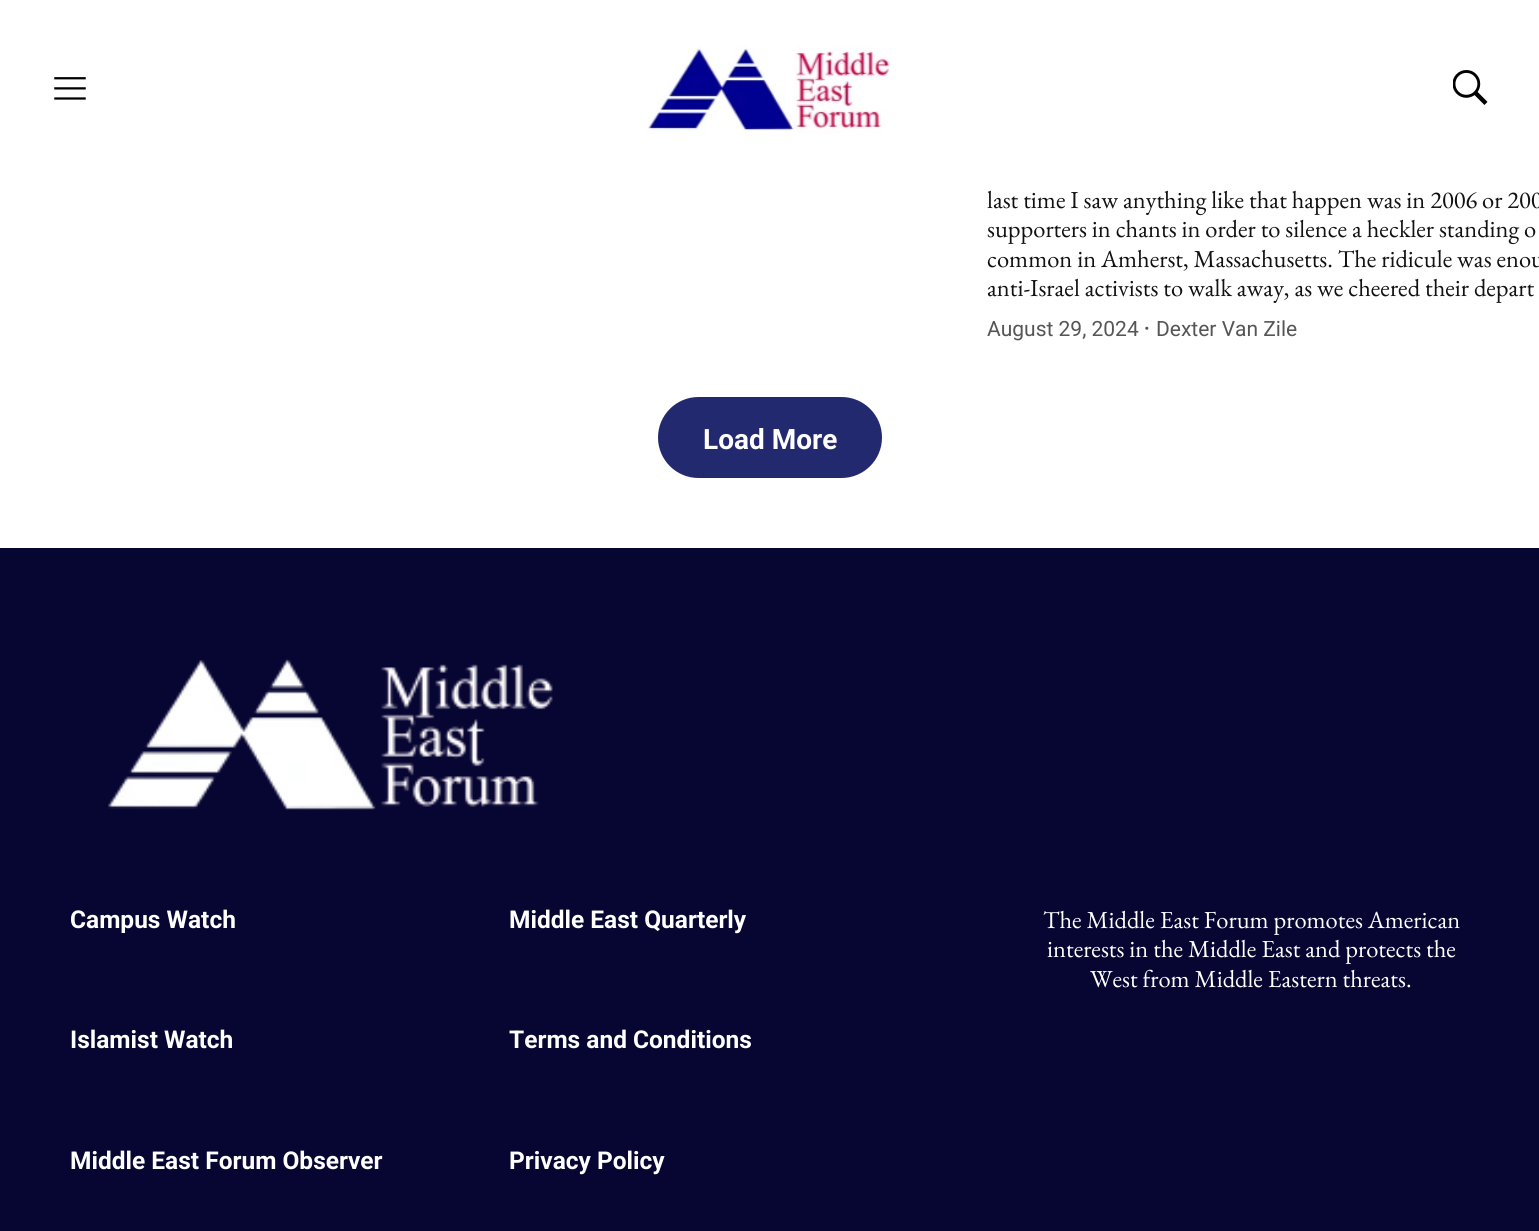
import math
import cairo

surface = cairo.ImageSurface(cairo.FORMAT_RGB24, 1539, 1231)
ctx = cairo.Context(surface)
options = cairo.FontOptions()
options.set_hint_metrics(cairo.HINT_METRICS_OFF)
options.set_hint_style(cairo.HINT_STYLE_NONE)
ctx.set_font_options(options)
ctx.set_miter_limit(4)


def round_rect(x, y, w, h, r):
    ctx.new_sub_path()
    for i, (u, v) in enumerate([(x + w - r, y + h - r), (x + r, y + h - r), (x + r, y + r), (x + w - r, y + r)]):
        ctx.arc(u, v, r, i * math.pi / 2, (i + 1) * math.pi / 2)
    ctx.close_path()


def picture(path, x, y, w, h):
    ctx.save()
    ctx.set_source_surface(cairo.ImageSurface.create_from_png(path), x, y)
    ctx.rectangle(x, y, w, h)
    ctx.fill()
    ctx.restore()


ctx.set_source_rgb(1, 1, 1)
ctx.paint()
picture("img1.png", 54, 77, 32, 23)
picture("img2.png", 648, 46, 242, 88)
picture("img3.png", 1453, 70, 35, 35)
ctx.select_font_face("EB Garamond")
ctx.set_font_size(24.5)
ctx.set_source_rgb(0.067, 0.067, 0.067)
ctx.move_to(987, 208)
ctx.show_text("last time I saw anything like that happen was in 2006 or 200")
ctx.move_to(987, 237)
ctx.show_text("supporters in chants in order to silence a heckler standing o")
ctx.move_to(987, 267)
ctx.show_text("common in Amherst, Massachusetts. The ridicule was enou")
ctx.move_to(987, 296)
ctx.show_text("anti-Israel activists to walk away, as we cheered their depart")
ctx.select_font_face("Roboto")
ctx.set_font_size(21)
ctx.set_source_rgb(0.333, 0.333, 0.333)
ctx.move_to(987, 336)
ctx.show_text("August 29, 2024")
ctx.select_font_face("EB Garamond")
ctx.set_font_size(28)
ctx.move_to(1144, 334)
ctx.show_text("·")
ctx.select_font_face("Roboto")
ctx.set_font_size(21)
ctx.move_to(1156, 336)
ctx.show_text("Dexter Van Zile")
ctx.set_source_rgb(0.137, 0.161, 0.431)
round_rect(659, 398, 222, 79, 39.5)
ctx.fill_preserve()
ctx.stroke()
ctx.select_font_face("Roboto", cairo.FONT_SLANT_NORMAL, cairo.FONT_WEIGHT_BOLD)
ctx.set_font_size(28)
ctx.set_source_rgb(1, 1, 1)
ctx.move_to(703, 449)
ctx.show_text("Load More")
ctx.set_source_rgb(0.031, 0.027, 0.2)
ctx.rectangle(0, 548, 1539, 683)
ctx.fill()
picture("img4.png", 108, 658, 445, 152)
ctx.set_font_size(24.5)
ctx.set_source_rgb(1, 1, 1)
ctx.move_to(70, 928)
ctx.show_text("Campus Watch")
ctx.move_to(509, 928)
ctx.show_text("Middle East Quarterly")
ctx.move_to(70, 1048)
ctx.show_text("Islamist Watch")
ctx.move_to(509, 1048)
ctx.show_text("Terms and Conditions")
ctx.move_to(70, 1169)
ctx.show_text("Middle East Forum Observer")
ctx.move_to(509, 1169)
ctx.show_text("Privacy Policy")
ctx.select_font_face("EB Garamond")
ctx.move_to(1043, 928)
ctx.show_text("The Middle East Forum promotes American")
ctx.move_to(1047, 957)
ctx.show_text("interests in the Middle East and protects the")
ctx.move_to(1090, 987)
ctx.show_text("West from Middle Eastern threats.")
surface.write_to_png("page.png")
